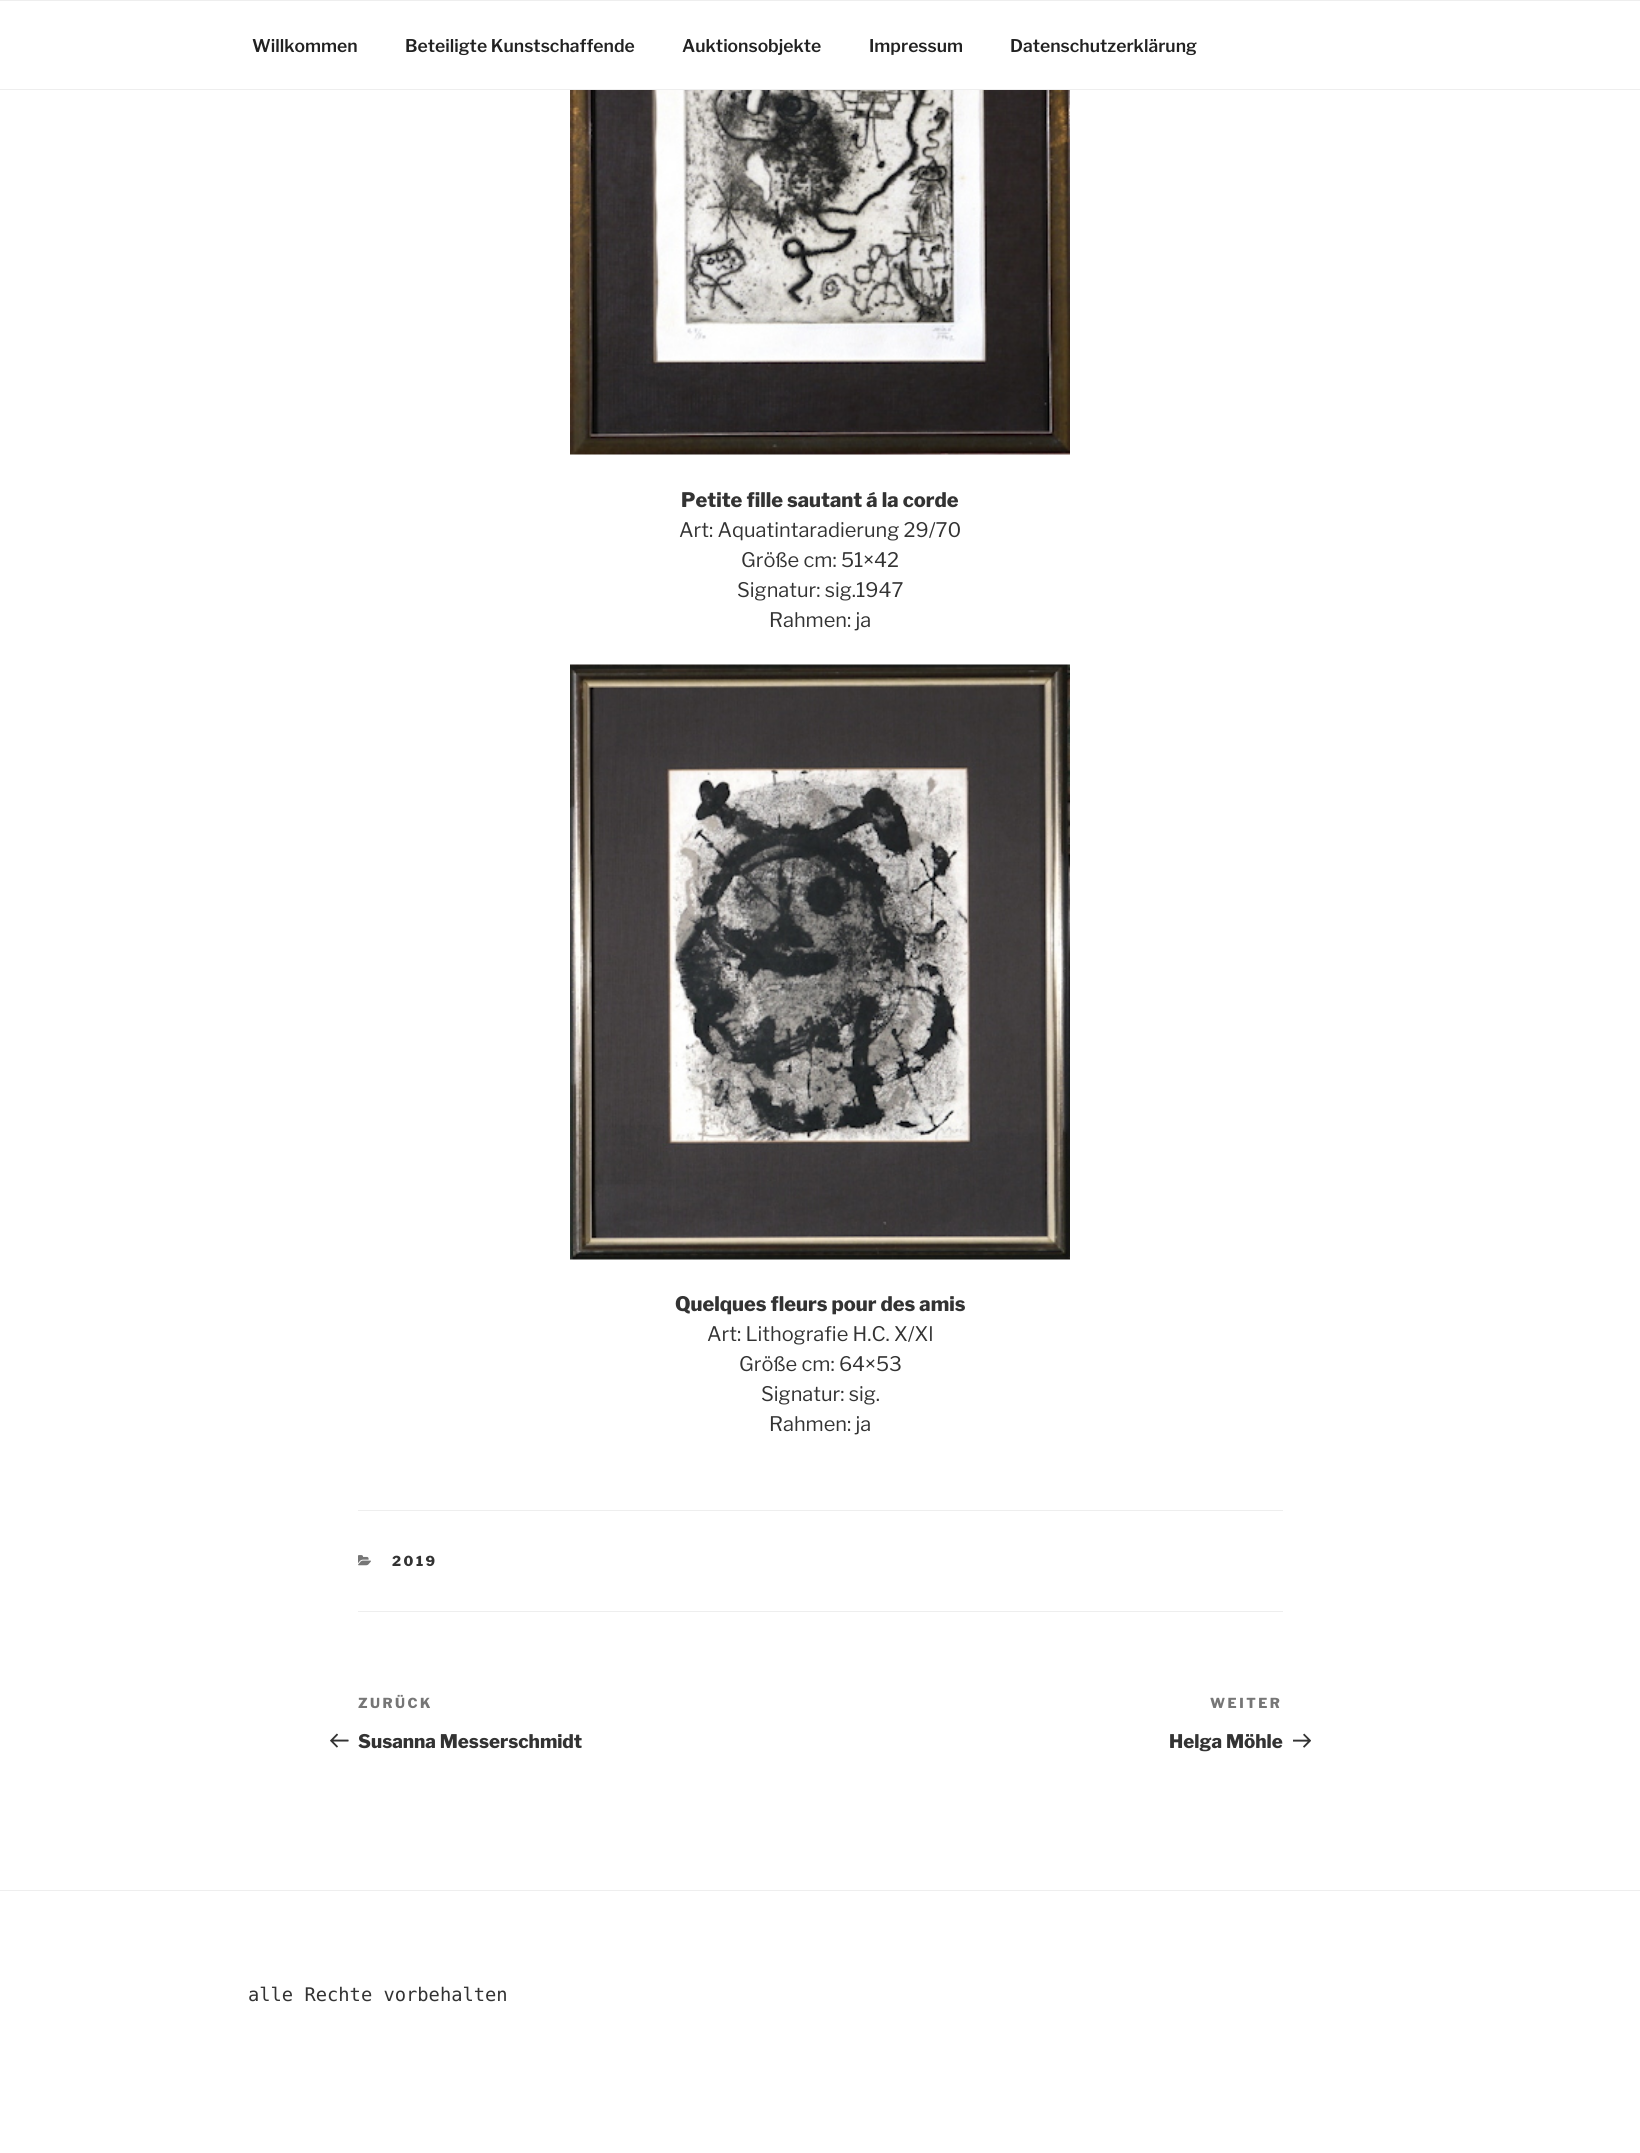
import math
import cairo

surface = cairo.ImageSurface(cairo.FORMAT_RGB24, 1640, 2153)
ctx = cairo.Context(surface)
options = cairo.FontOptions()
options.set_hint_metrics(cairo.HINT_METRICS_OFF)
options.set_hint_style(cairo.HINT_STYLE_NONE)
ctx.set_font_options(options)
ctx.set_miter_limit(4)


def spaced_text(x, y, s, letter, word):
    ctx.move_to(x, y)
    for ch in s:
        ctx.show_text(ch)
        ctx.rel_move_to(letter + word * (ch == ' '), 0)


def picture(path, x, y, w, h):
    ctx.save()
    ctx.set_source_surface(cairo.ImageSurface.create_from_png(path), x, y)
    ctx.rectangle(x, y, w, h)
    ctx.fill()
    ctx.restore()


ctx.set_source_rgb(1, 1, 1)
ctx.paint()
ctx.set_source_rgb(0.933, 0.933, 0.933)
ctx.rectangle(0, 0, 1640, 1)
ctx.fill()
ctx.rectangle(0, 89, 1640, 1)
ctx.fill()
ctx.select_font_face("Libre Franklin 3 Thin")
ctx.set_font_size(17.5)
ctx.set_source_rgb(0.133, 0.133, 0.133)
ctx.move_to(252, 52)
ctx.show_text("Willkommen")
ctx.move_to(405, 52)
ctx.show_text("Beteiligte Kunstschaffende")
ctx.move_to(682, 52)
ctx.show_text("Auktionsobjekte")
ctx.move_to(869, 52)
ctx.show_text("Impressum")
ctx.move_to(1010, 52)
ctx.show_text("Datenschutzerklärung")
picture("img1.png", 570, 90, 500, 365)
ctx.select_font_face("Libre Franklin Thin")
ctx.set_font_size(20)
ctx.set_source_rgb(0.2, 0.2, 0.2)
ctx.move_to(681, 507)
ctx.show_text("Petite fille sautant á la corde")
ctx.select_font_face("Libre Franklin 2 Thin")
ctx.move_to(679, 537)
ctx.show_text("Art: Aquatintaradierung 29/70")
ctx.move_to(741, 567)
ctx.show_text("Größe cm: 51×42")
ctx.move_to(737, 597)
ctx.show_text("Signatur: sig.1947")
ctx.move_to(769, 627)
ctx.show_text("Rahmen: ja")
picture("img2.png", 570, 664, 500, 596)
ctx.select_font_face("Libre Franklin Thin")
ctx.move_to(675, 1311)
ctx.show_text("Quelques fleurs pour des amis")
ctx.select_font_face("Libre Franklin 2 Thin")
ctx.move_to(707, 1341)
ctx.show_text("Art: Lithografie H.C. X/Xl")
ctx.move_to(739, 1371)
ctx.show_text("Größe cm: 64×53")
ctx.move_to(761, 1401)
ctx.show_text("Signatur: sig.")
ctx.move_to(769, 1431)
ctx.show_text("Rahmen: ja")
ctx.set_source_rgb(0.933, 0.933, 0.933)
ctx.rectangle(358, 1510, 925, 1)
ctx.fill()
ctx.rectangle(358, 1611, 925, 1)
ctx.fill()
picture("img3.png", 358, 1555, 13, 11)
ctx.select_font_face("Libre Franklin Thin")
ctx.set_font_size(13.75)
ctx.set_source_rgb(0.2, 0.2, 0.2)
spaced_text(392, 1566, "2019", 2.5, 0)
ctx.set_source_rgb(0.463, 0.463, 0.463)
spaced_text(358, 1708, "ZURÜCK", 2.5, 0)
picture("img4.png", 330, 1733, 19, 15)
ctx.set_font_size(18.75)
ctx.set_source_rgb(0.2, 0.2, 0.2)
ctx.move_to(358, 1748)
ctx.show_text("Susanna Messerschmidt")
ctx.set_font_size(13.75)
ctx.set_source_rgb(0.463, 0.463, 0.463)
spaced_text(1210, 1708, "WEITER", 2.5, 0)
ctx.set_font_size(18.75)
ctx.set_source_rgb(0.2, 0.2, 0.2)
ctx.move_to(1169, 1748)
ctx.show_text("Helga Möhle")
picture("img5.png", 1293, 1733, 18, 15)
ctx.set_source_rgb(0.933, 0.933, 0.933)
ctx.rectangle(0, 1890, 1640, 1)
ctx.fill()
ctx.select_font_face("DejaVu Sans Mono")
ctx.set_source_rgb(0.2, 0.2, 0.2)
ctx.move_to(248, 2001)
ctx.show_text("alle Rechte vorbehalten")
surface.write_to_png("page.png")
